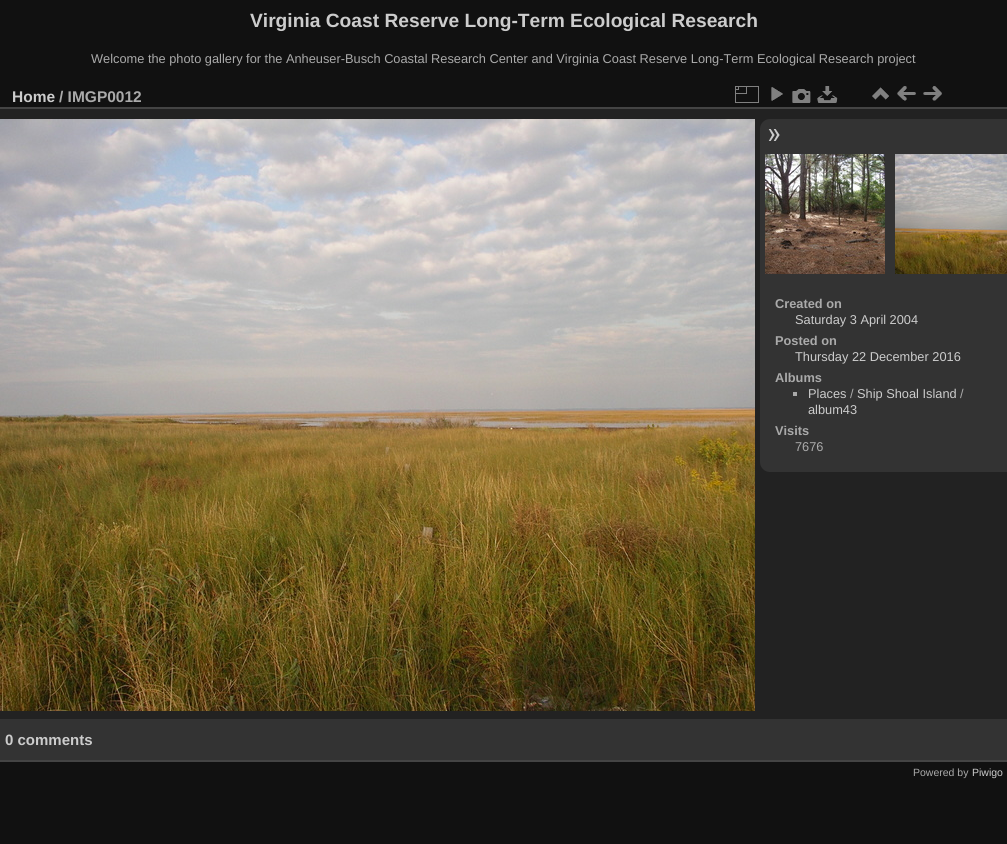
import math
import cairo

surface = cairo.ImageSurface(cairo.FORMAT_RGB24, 1007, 844)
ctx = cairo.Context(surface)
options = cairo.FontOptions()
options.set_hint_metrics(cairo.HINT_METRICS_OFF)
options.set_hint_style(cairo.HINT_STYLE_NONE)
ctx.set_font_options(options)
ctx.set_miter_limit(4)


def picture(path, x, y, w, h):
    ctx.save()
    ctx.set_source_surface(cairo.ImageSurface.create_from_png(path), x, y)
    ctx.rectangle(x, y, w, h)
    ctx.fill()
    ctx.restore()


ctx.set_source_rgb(0.067, 0.067, 0.067)
ctx.paint()
ctx.select_font_face("Liberation Sans", cairo.FONT_SLANT_NORMAL, cairo.FONT_WEIGHT_BOLD)
ctx.set_font_size(19.2)
ctx.set_source_rgb(0.8, 0.8, 0.8)
ctx.move_to(250, 27)
ctx.show_text("Virginia Coast Reserve Long-Term Ecological Research")
ctx.select_font_face("Liberation Sans")
ctx.set_font_size(12.8)
ctx.set_source_rgb(0.667, 0.667, 0.667)
ctx.move_to(91, 63)
ctx.show_text("Welcome the photo gallery for the Anheuser-Busch Coastal Research Center and Virginia Coast Reserve Long-Term Ecological Research project")
ctx.set_source_rgb(0.133, 0.133, 0.133)
ctx.rectangle(0, 109, 1007, 610)
ctx.fill()
ctx.set_source_rgb(0.267, 0.267, 0.267)
ctx.rectangle(0, 760, 1007, 2)
ctx.fill()
ctx.rectangle(0, 107, 1007, 2)
ctx.fill()
ctx.select_font_face("Liberation Sans", cairo.FONT_SLANT_NORMAL, cairo.FONT_WEIGHT_BOLD)
ctx.set_font_size(15.5)
ctx.set_source_rgb(0.8, 0.8, 0.8)
ctx.move_to(12, 102)
ctx.show_text("Home")
ctx.set_source_rgb(0.667, 0.667, 0.667)
ctx.move_to(59, 102)
ctx.show_text("/ IMGP0012")
picture("img1.png", 735, 86, 24, 17)
picture("img2.png", 771, 87, 12, 14)
picture("img3.png", 792, 89, 19, 14)
picture("img4.png", 817, 86, 21, 17)
picture("img5.png", 872, 87, 17, 13)
picture("img6.png", 897, 86, 19, 15)
picture("img7.png", 923, 86, 19, 15)
picture("img8.png", 0, 119, 755, 592)
ctx.set_source_rgb(0.2, 0.2, 0.2)
ctx.new_path()
ctx.move_to(770, 119)
ctx.line_to(1007, 119)
ctx.line_to(1007, 472)
ctx.line_to(770, 472)
ctx.curve_to(764.5, 472, 760, 467.5, 760, 462)
ctx.line_to(760, 129)
ctx.curve_to(760, 123.5, 764.5, 119, 770, 119)
ctx.close_path()
ctx.fill()
picture("img9.png", 768, 129, 12, 12)
picture("img10.png", 765, 154, 120, 120)
picture("img11.png", 895, 154, 112, 120)
ctx.set_font_size(12.8)
ctx.set_source_rgb(0.667, 0.667, 0.667)
ctx.move_to(775, 308)
ctx.show_text("Created on")
ctx.select_font_face("Liberation Sans")
ctx.set_source_rgb(0.8, 0.8, 0.8)
ctx.move_to(795, 324)
ctx.show_text("Saturday 3 April 2004")
ctx.select_font_face("Liberation Sans", cairo.FONT_SLANT_NORMAL, cairo.FONT_WEIGHT_BOLD)
ctx.set_source_rgb(0.667, 0.667, 0.667)
ctx.move_to(775, 345)
ctx.show_text("Posted on")
ctx.select_font_face("Liberation Sans")
ctx.set_source_rgb(0.8, 0.8, 0.8)
ctx.move_to(795, 361)
ctx.show_text("Thursday 22 December 2016")
ctx.select_font_face("Liberation Sans", cairo.FONT_SLANT_NORMAL, cairo.FONT_WEIGHT_BOLD)
ctx.set_source_rgb(0.667, 0.667, 0.667)
ctx.move_to(775, 382)
ctx.show_text("Albums")
ctx.rectangle(793, 392, 4, 4)
ctx.fill()
ctx.select_font_face("Liberation Sans")
ctx.set_source_rgb(0.8, 0.8, 0.8)
ctx.move_to(808, 398)
ctx.show_text("Places")
ctx.set_source_rgb(0.667, 0.667, 0.667)
ctx.move_to(850, 398)
ctx.show_text("/")
ctx.set_source_rgb(0.8, 0.8, 0.8)
ctx.move_to(857, 398)
ctx.show_text("Ship Shoal Island")
ctx.set_source_rgb(0.667, 0.667, 0.667)
ctx.move_to(960, 398)
ctx.show_text("/")
ctx.set_source_rgb(0.8, 0.8, 0.8)
ctx.move_to(808, 414)
ctx.show_text("album43")
ctx.select_font_face("Liberation Sans", cairo.FONT_SLANT_NORMAL, cairo.FONT_WEIGHT_BOLD)
ctx.set_source_rgb(0.667, 0.667, 0.667)
ctx.move_to(775, 435)
ctx.show_text("Visits")
ctx.select_font_face("Liberation Sans")
ctx.move_to(795, 451)
ctx.show_text("7676")
ctx.set_source_rgb(0.2, 0.2, 0.2)
ctx.rectangle(0, 719, 1007, 41)
ctx.fill()
ctx.select_font_face("Liberation Sans", cairo.FONT_SLANT_NORMAL, cairo.FONT_WEIGHT_BOLD)
ctx.set_font_size(15)
ctx.set_source_rgb(0.8, 0.8, 0.8)
ctx.move_to(5, 745)
ctx.show_text("0 comments")
ctx.select_font_face("Liberation Sans")
ctx.set_font_size(10.5)
ctx.set_source_rgb(0.667, 0.667, 0.667)
ctx.move_to(913, 776)
ctx.show_text("Powered by")
ctx.set_source_rgb(0.8, 0.8, 0.8)
ctx.move_to(972, 776)
ctx.show_text("Piwigo")
surface.write_to_png("page.png")
